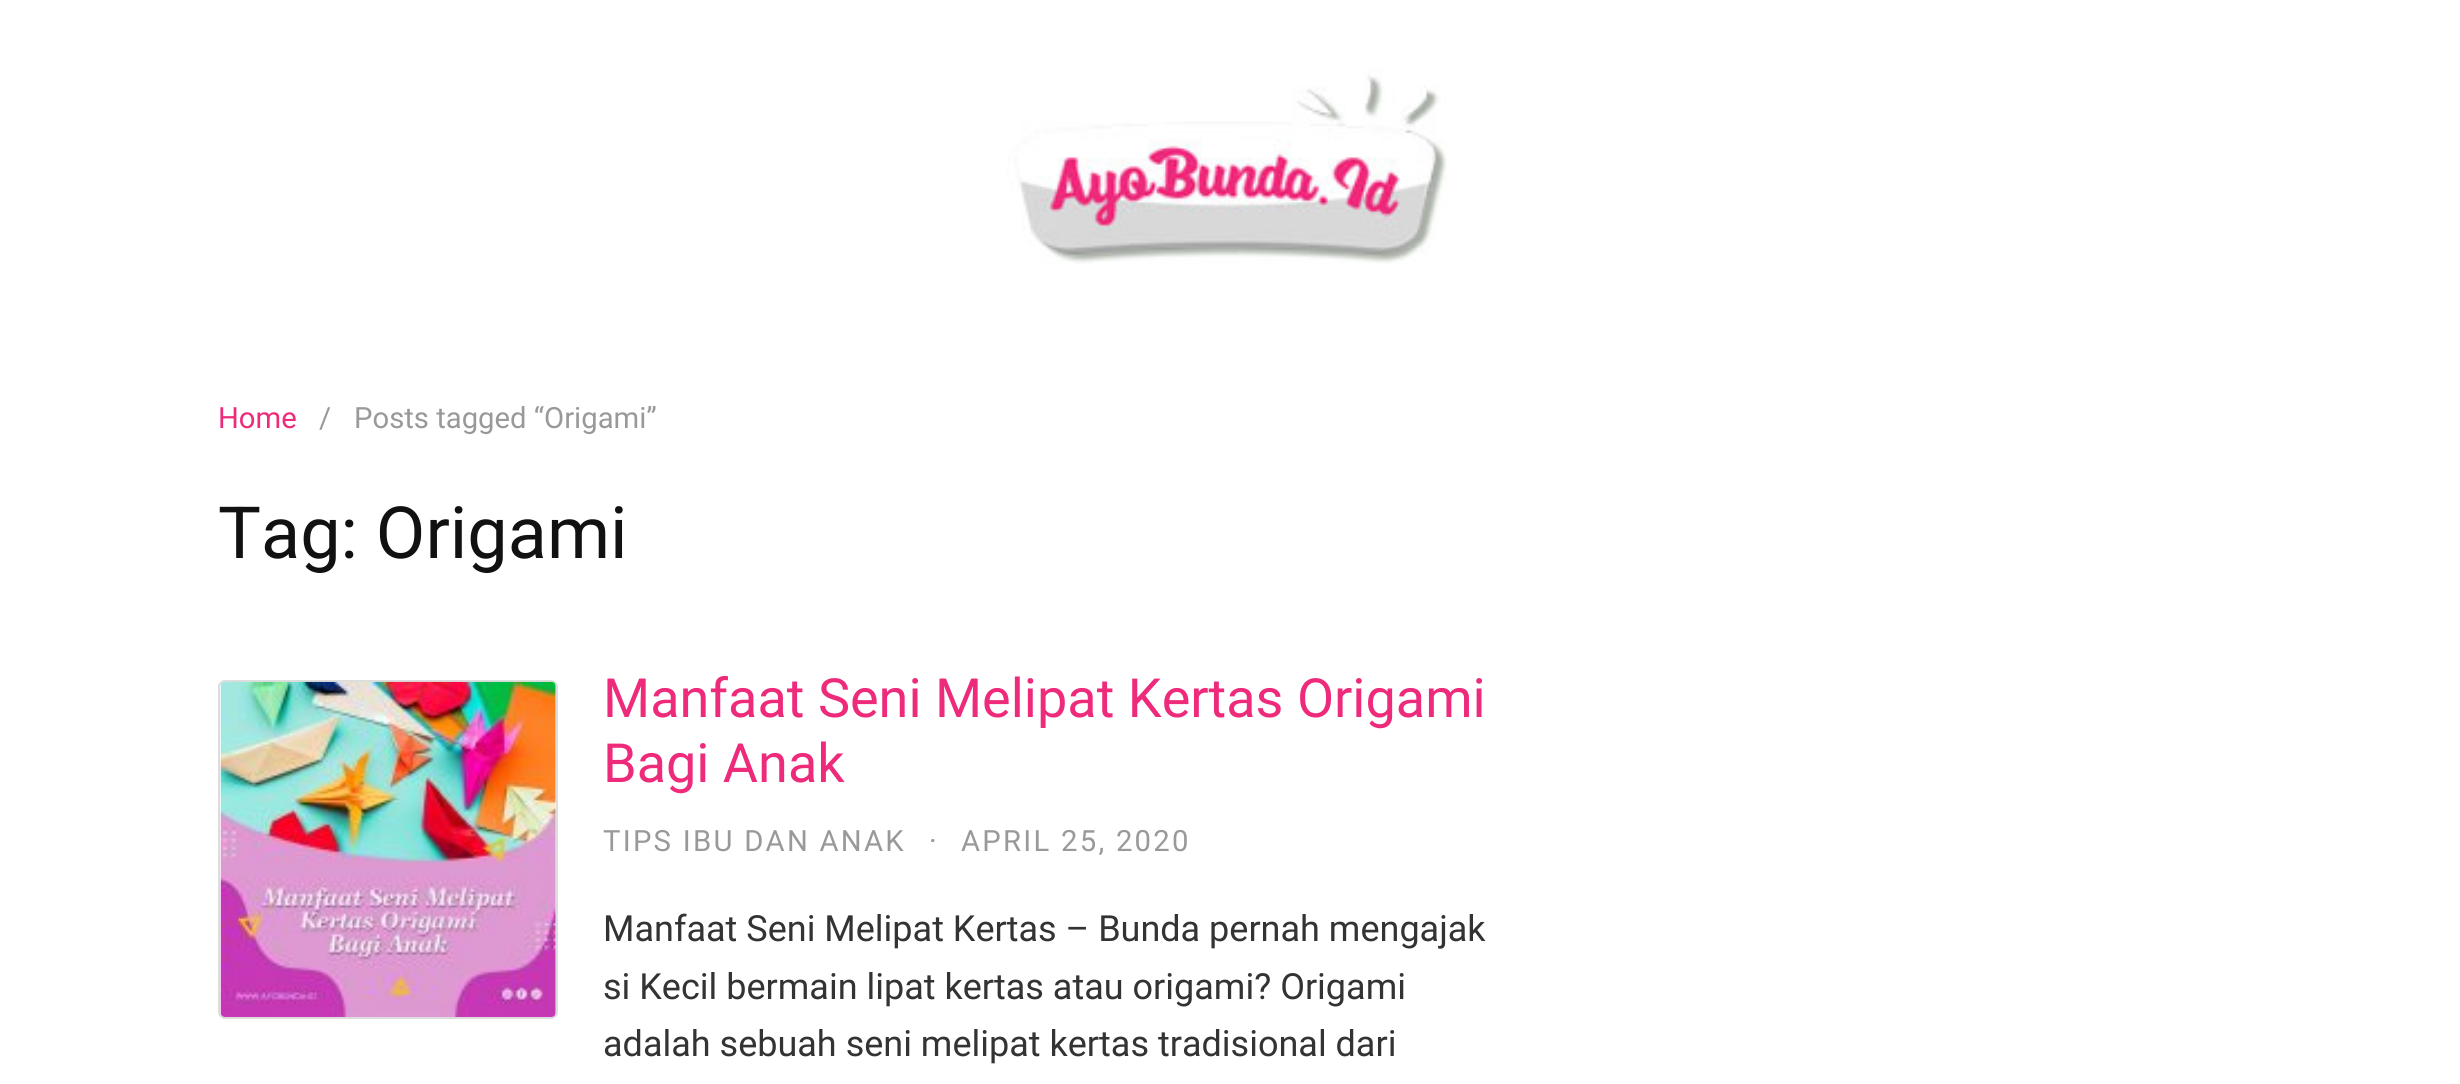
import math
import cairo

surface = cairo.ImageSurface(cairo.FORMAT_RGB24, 2460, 1084)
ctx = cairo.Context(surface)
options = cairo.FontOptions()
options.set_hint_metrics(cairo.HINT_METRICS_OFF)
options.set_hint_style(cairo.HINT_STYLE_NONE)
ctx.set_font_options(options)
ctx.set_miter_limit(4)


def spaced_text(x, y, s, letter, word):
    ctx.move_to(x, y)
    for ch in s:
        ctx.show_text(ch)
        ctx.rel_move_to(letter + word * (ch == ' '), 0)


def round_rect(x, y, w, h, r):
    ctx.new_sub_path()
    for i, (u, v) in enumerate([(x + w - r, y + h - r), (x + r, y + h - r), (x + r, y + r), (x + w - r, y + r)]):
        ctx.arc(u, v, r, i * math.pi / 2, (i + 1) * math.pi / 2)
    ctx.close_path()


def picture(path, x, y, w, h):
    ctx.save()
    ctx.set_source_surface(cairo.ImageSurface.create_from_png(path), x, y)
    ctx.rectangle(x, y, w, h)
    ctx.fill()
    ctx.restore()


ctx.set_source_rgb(1, 1, 1)
ctx.paint()
picture("img1.png", 1006, 68, 441, 196)
ctx.select_font_face("Roboto")
ctx.set_font_size(29.25)
ctx.set_source_rgb(0.933, 0.165, 0.482)
ctx.move_to(218, 428)
ctx.show_text("Home")
ctx.set_source_rgb(0.6, 0.6, 0.6)
ctx.move_to(319, 428)
ctx.show_text("/")
ctx.move_to(354, 428)
ctx.show_text("Posts tagged “Origami”")
ctx.set_font_size(72)
ctx.set_source_rgb(0.067, 0.067, 0.067)
ctx.move_to(218, 558)
ctx.show_text("Tag: Origami")
round_rect(219, 681, 338, 337, 6)
ctx.set_source_rgb(0.867, 0.867, 0.867)
ctx.stroke()
picture("img2.png", 220, 681, 336, 336)
ctx.set_font_size(54)
ctx.set_source_rgb(0.933, 0.165, 0.482)
ctx.move_to(603, 717)
ctx.show_text("Manfaat Seni Melipat Kertas Origami")
ctx.move_to(603, 782)
ctx.show_text("Bagi Anak")
ctx.set_font_size(29.25)
ctx.set_source_rgb(0.6, 0.6, 0.6)
spaced_text(603, 851, "TIPS IBU DAN ANAK", 2.25, 0)
spaced_text(929, 851, "·", 2.25, 0)
spaced_text(961, 851, "APRIL 25, 2020", 2.25, 0)
ctx.set_font_size(36)
ctx.set_source_rgb(0.2, 0.2, 0.2)
ctx.move_to(603, 941)
ctx.show_text("Manfaat Seni Melipat Kertas – Bunda pernah mengajak")
ctx.move_to(603, 999)
ctx.show_text("si Kecil bermain lipat kertas atau origami? Origami")
ctx.move_to(603, 1056)
ctx.show_text("adalah sebuah seni melipat kertas tradisional dari")
surface.write_to_png("page.png")
